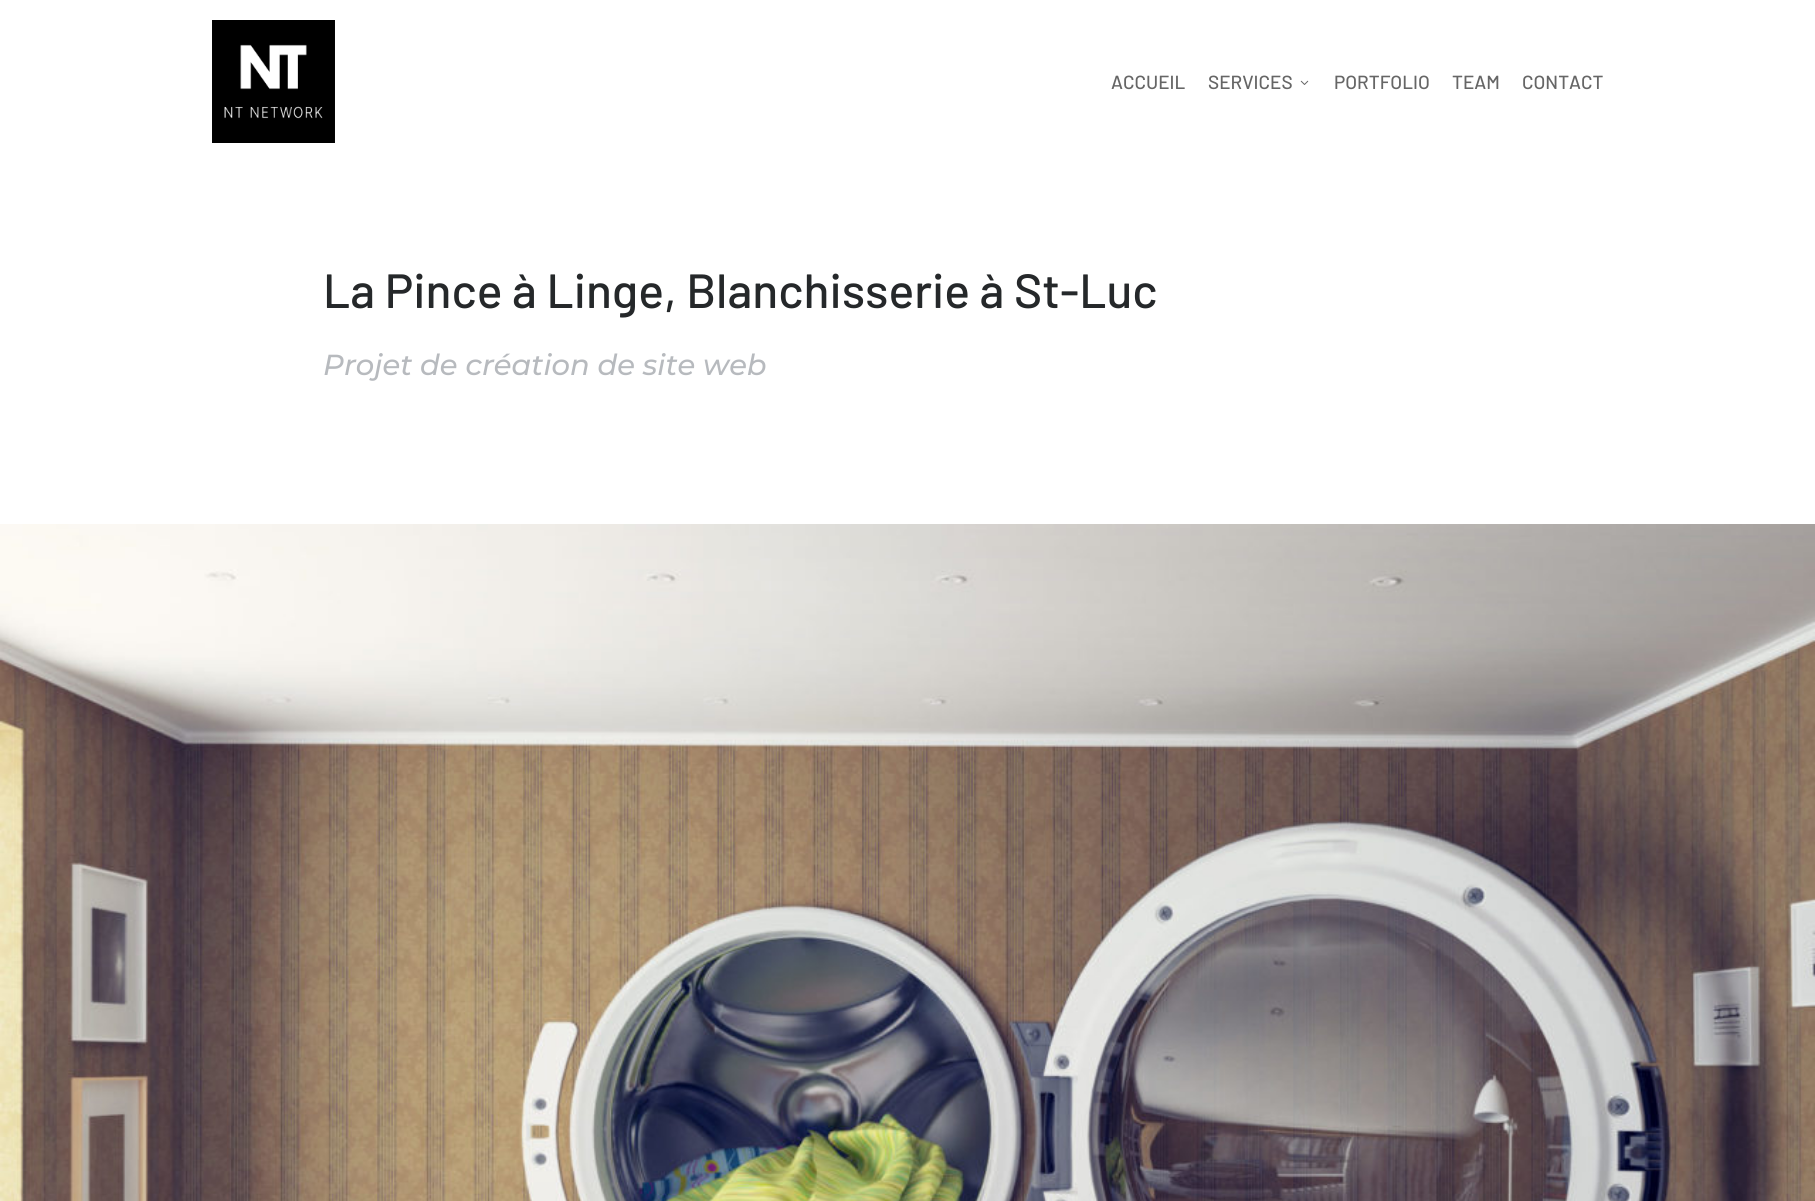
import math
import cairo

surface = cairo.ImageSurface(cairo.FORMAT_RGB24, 1815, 1201)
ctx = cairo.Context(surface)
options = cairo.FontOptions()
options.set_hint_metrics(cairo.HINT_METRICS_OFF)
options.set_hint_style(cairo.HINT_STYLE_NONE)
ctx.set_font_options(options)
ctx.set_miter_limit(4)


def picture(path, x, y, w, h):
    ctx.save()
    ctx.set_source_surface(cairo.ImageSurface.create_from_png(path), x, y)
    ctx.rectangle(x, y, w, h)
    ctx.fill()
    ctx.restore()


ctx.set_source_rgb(1, 1, 1)
ctx.paint()
picture("img1.png", 212, 20, 123, 123)
ctx.select_font_face("Barlow Medium")
ctx.set_font_size(19)
ctx.set_source_rgb(0.4, 0.4, 0.4)
ctx.move_to(1111, 89)
ctx.show_text("ACCUEIL")
ctx.move_to(1208, 89)
ctx.show_text("SERVICES")
picture("img2.png", 1300, 80, 9, 5)
ctx.move_to(1334, 89)
ctx.show_text("PORTFOLIO")
ctx.move_to(1452, 89)
ctx.show_text("TEAM")
ctx.move_to(1522, 89)
ctx.show_text("CONTACT")
ctx.set_font_size(48)
ctx.set_source_rgb(0.145, 0.157, 0.165)
ctx.move_to(323, 308)
ctx.show_text("La Pince à Linge, Blanchisserie à St-Luc")
ctx.select_font_face("Montserrat Medium", cairo.FONT_SLANT_ITALIC)
ctx.set_font_size(29)
ctx.set_source_rgb(0.718, 0.729, 0.745)
ctx.move_to(323, 375)
ctx.show_text("Projet de création de site web")
picture("img3.png", 0, 524, 1815, 677)
surface.write_to_png("page.png")
